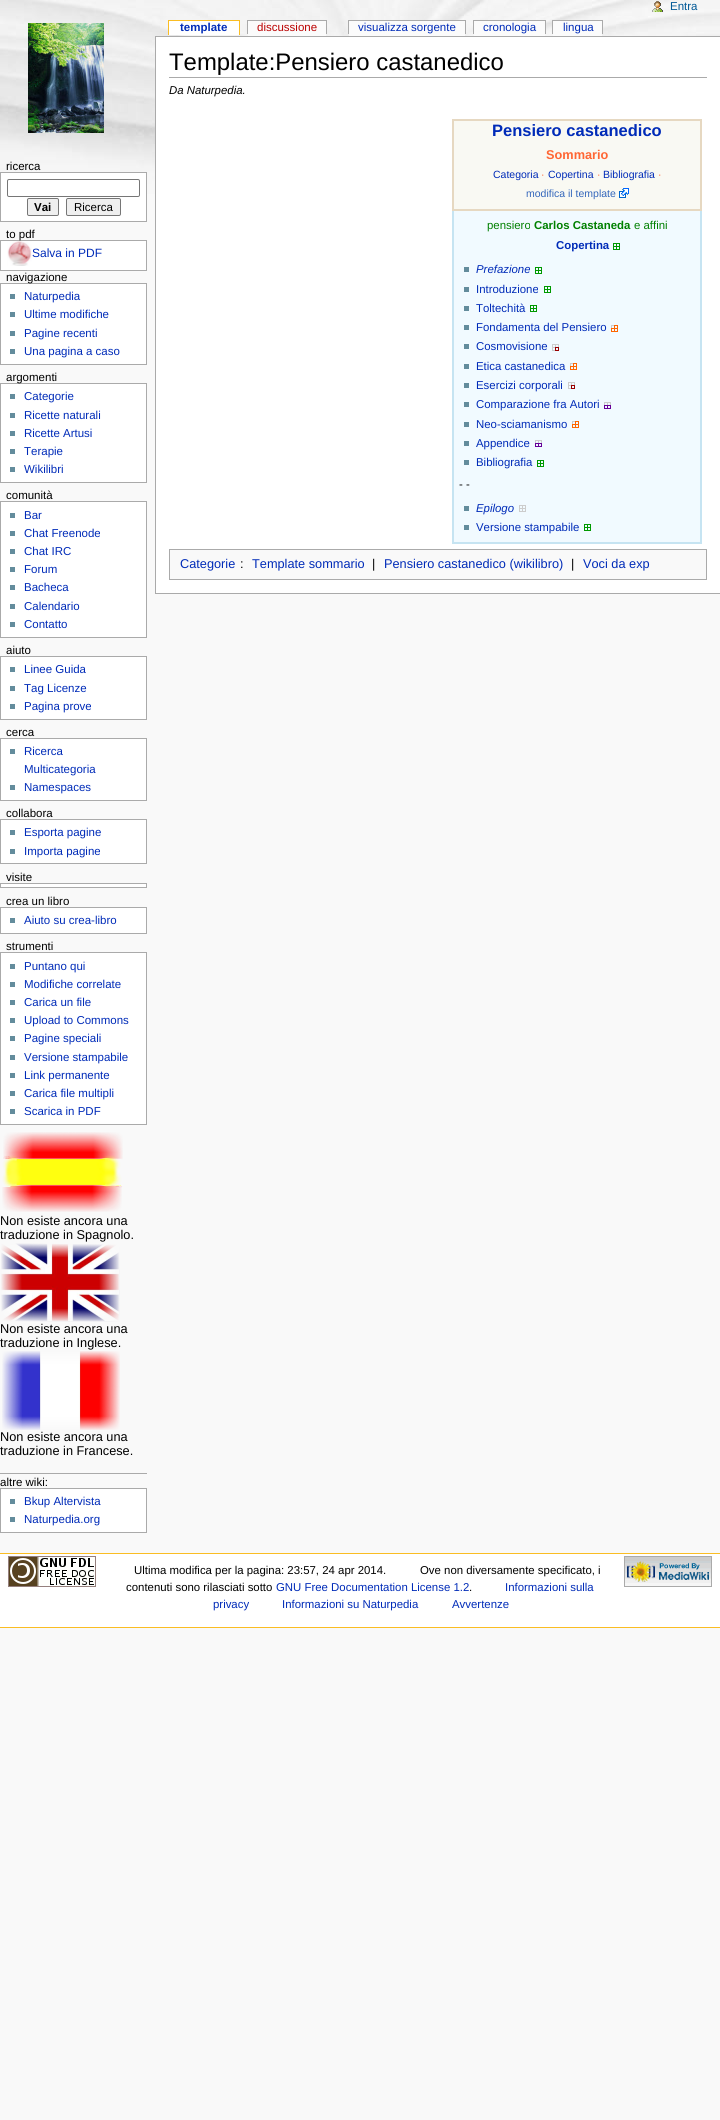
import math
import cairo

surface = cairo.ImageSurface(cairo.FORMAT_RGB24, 720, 2120)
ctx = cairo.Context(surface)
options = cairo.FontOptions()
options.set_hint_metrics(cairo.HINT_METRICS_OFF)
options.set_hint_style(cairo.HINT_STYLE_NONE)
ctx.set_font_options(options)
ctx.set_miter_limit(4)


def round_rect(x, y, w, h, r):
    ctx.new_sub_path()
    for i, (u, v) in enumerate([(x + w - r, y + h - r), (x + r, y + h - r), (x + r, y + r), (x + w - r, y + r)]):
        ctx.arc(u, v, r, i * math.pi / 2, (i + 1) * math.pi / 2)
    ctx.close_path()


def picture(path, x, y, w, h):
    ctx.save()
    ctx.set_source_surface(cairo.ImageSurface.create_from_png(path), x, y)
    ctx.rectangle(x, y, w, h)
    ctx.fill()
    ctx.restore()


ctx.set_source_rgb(0.976, 0.976, 0.976)
ctx.paint()
picture("img1.png", 0, 0, 720, 194)
picture("img2.png", 652, 1, 11, 11)
ctx.select_font_face("Liberation Sans")
ctx.set_font_size(11.5)
ctx.set_source_rgb(0, 0.345, 0.588)
ctx.move_to(670, 10)
ctx.show_text("Entra")
picture("img3.png", 28, 23, 76, 110)
ctx.set_source_rgb(1, 1, 1)
ctx.rectangle(169, 21, 70, 14)
ctx.fill()
ctx.select_font_face("Liberation Sans", cairo.FONT_SLANT_NORMAL, cairo.FONT_WEIGHT_BOLD)
ctx.set_source_rgb(0, 0.169, 0.722)
ctx.move_to(180, 31)
ctx.show_text("template")
ctx.set_source_rgb(0.98, 0.741, 0.137)
ctx.rectangle(168, 20, 72, 1)
ctx.fill()
ctx.rectangle(239, 20, 1, 15)
ctx.fill()
ctx.rectangle(168, 20, 1, 15)
ctx.fill()
ctx.set_source_rgb(0.984, 0.984, 0.984)
ctx.rectangle(248, 21, 78, 15)
ctx.fill()
ctx.select_font_face("Liberation Sans")
ctx.set_source_rgb(0.729, 0, 0)
ctx.move_to(257, 31)
ctx.show_text("discussione")
ctx.set_source_rgb(0.667, 0.667, 0.667)
ctx.rectangle(247, 20, 80, 1)
ctx.fill()
ctx.rectangle(326, 20, 1, 14)
ctx.fill()
ctx.rectangle(247, 20, 1, 14)
ctx.fill()
ctx.set_source_rgb(0.984, 0.984, 0.984)
ctx.rectangle(349, 21, 116, 15)
ctx.fill()
ctx.set_source_rgb(0, 0.169, 0.722)
ctx.move_to(358, 31)
ctx.show_text("visualizza sorgente")
ctx.set_source_rgb(0.667, 0.667, 0.667)
ctx.rectangle(348, 20, 118, 1)
ctx.fill()
ctx.rectangle(465, 20, 1, 14)
ctx.fill()
ctx.rectangle(348, 20, 1, 14)
ctx.fill()
ctx.set_source_rgb(0.984, 0.984, 0.984)
ctx.rectangle(474, 21, 71, 15)
ctx.fill()
ctx.set_source_rgb(0, 0.169, 0.722)
ctx.move_to(483, 31)
ctx.show_text("cronologia")
ctx.set_source_rgb(0.667, 0.667, 0.667)
ctx.rectangle(473, 20, 73, 1)
ctx.fill()
ctx.rectangle(545, 20, 1, 14)
ctx.fill()
ctx.rectangle(473, 20, 1, 14)
ctx.fill()
ctx.set_source_rgb(0.984, 0.984, 0.984)
ctx.rectangle(553, 21, 49, 15)
ctx.fill()
ctx.set_source_rgb(0, 0.169, 0.722)
ctx.move_to(563, 31)
ctx.show_text("lingua")
ctx.set_source_rgb(0.667, 0.667, 0.667)
ctx.rectangle(552, 20, 51, 1)
ctx.fill()
ctx.rectangle(602, 20, 1, 14)
ctx.fill()
ctx.rectangle(552, 20, 1, 14)
ctx.fill()
ctx.set_source_rgb(0, 0, 0)
ctx.move_to(6, 170)
ctx.show_text("ricerca")
ctx.set_source_rgb(1, 1, 1)
ctx.rectangle(0.5, 172.5, 146, 49)
ctx.fill_preserve()
ctx.set_source_rgb(0.667, 0.667, 0.667)
ctx.set_line_width(1)
ctx.stroke()
round_rect(7.5, 179.5, 132, 17, 1.5)
ctx.set_source_rgb(0.463, 0.463, 0.463)
ctx.stroke()
ctx.set_source_rgb(0.937, 0.937, 0.937)
round_rect(27.5, 198.5, 31, 17, 1.5)
ctx.fill_preserve()
ctx.set_source_rgb(0.463, 0.463, 0.463)
ctx.stroke()
ctx.select_font_face("Liberation Sans", cairo.FONT_SLANT_NORMAL, cairo.FONT_WEIGHT_BOLD)
ctx.set_source_rgb(0, 0, 0)
ctx.move_to(34, 211)
ctx.show_text("Vai")
ctx.set_source_rgb(0.937, 0.937, 0.937)
round_rect(66.5, 198.5, 54, 17, 1.5)
ctx.fill_preserve()
ctx.set_source_rgb(0.463, 0.463, 0.463)
ctx.stroke()
ctx.select_font_face("Liberation Sans")
ctx.set_source_rgb(0, 0, 0)
ctx.move_to(74, 211)
ctx.show_text("Ricerca")
ctx.set_source_rgb(1, 1, 1)
ctx.rectangle(0.5, 240.5, 146, 30)
ctx.fill_preserve()
ctx.set_source_rgb(0.667, 0.667, 0.667)
ctx.stroke()
ctx.set_source_rgb(0, 0, 0)
ctx.move_to(6, 238)
ctx.show_text("to pdf")
picture("img4.png", 7, 241, 25, 25)
ctx.set_font_size(12)
ctx.set_source_rgb(0, 0.169, 0.722)
ctx.move_to(32, 257)
ctx.show_text("Salva in PDF")
ctx.set_source_rgb(1, 1, 1)
ctx.rectangle(0.5, 283.5, 146, 81)
ctx.fill_preserve()
ctx.set_source_rgb(0.667, 0.667, 0.667)
ctx.stroke()
ctx.set_font_size(11.5)
ctx.set_source_rgb(0, 0, 0)
ctx.move_to(6, 281)
ctx.show_text("navigazione")
ctx.set_source_rgb(0.388, 0.549, 0.612)
ctx.rectangle(10, 294, 5, 5)
ctx.fill()
ctx.set_source_rgb(0, 0.169, 0.722)
ctx.move_to(24, 300)
ctx.show_text("Naturpedia")
ctx.set_source_rgb(0.388, 0.549, 0.612)
ctx.rectangle(10, 312, 5, 5)
ctx.fill()
ctx.set_source_rgb(0, 0.169, 0.722)
ctx.move_to(24, 318)
ctx.show_text("Ultime modifiche")
ctx.set_source_rgb(0.388, 0.549, 0.612)
ctx.rectangle(10, 331, 5, 5)
ctx.fill()
ctx.set_source_rgb(0, 0.169, 0.722)
ctx.move_to(24, 337)
ctx.show_text("Pagine recenti")
ctx.set_source_rgb(0.388, 0.549, 0.612)
ctx.rectangle(10, 349, 5, 5)
ctx.fill()
ctx.set_source_rgb(0, 0.169, 0.722)
ctx.move_to(24, 355)
ctx.show_text("Una pagina a caso")
ctx.set_source_rgb(1, 1, 1)
ctx.rectangle(0.5, 383.5, 146, 99)
ctx.fill_preserve()
ctx.set_source_rgb(0.667, 0.667, 0.667)
ctx.stroke()
ctx.set_source_rgb(0, 0, 0)
ctx.move_to(6, 381)
ctx.show_text("argomenti")
ctx.set_source_rgb(0.388, 0.549, 0.612)
ctx.rectangle(10, 394, 5, 5)
ctx.fill()
ctx.set_source_rgb(0, 0.169, 0.722)
ctx.move_to(24, 400)
ctx.show_text("Categorie")
ctx.set_source_rgb(0.388, 0.549, 0.612)
ctx.rectangle(10, 413, 5, 5)
ctx.fill()
ctx.set_source_rgb(0, 0.169, 0.722)
ctx.move_to(24, 419)
ctx.show_text("Ricette naturali")
ctx.set_source_rgb(0.388, 0.549, 0.612)
ctx.rectangle(10, 431, 5, 5)
ctx.fill()
ctx.set_source_rgb(0, 0.169, 0.722)
ctx.move_to(24, 437)
ctx.show_text("Ricette Artusi")
ctx.set_source_rgb(0.388, 0.549, 0.612)
ctx.rectangle(10, 449, 5, 5)
ctx.fill()
ctx.set_source_rgb(0, 0.169, 0.722)
ctx.move_to(24, 455)
ctx.show_text("Terapie")
ctx.set_source_rgb(0.388, 0.549, 0.612)
ctx.rectangle(10, 467, 5, 5)
ctx.fill()
ctx.set_source_rgb(0, 0.169, 0.722)
ctx.move_to(24, 473)
ctx.show_text("Wikilibri")
ctx.set_source_rgb(0, 0, 0)
ctx.move_to(6, 499)
ctx.show_text("comunità")
ctx.set_source_rgb(1, 1, 1)
ctx.rectangle(0.5, 501.5, 146, 136)
ctx.fill_preserve()
ctx.set_source_rgb(0.667, 0.667, 0.667)
ctx.stroke()
ctx.set_source_rgb(0.388, 0.549, 0.612)
ctx.rectangle(10, 513, 5, 5)
ctx.fill()
ctx.set_source_rgb(0, 0.169, 0.722)
ctx.move_to(24, 519)
ctx.show_text("Bar")
ctx.set_source_rgb(0.388, 0.549, 0.612)
ctx.rectangle(10, 531, 5, 5)
ctx.fill()
ctx.set_source_rgb(0, 0.169, 0.722)
ctx.move_to(24, 537)
ctx.show_text("Chat Freenode")
ctx.set_source_rgb(0.388, 0.549, 0.612)
ctx.rectangle(10, 549, 5, 5)
ctx.fill()
ctx.set_source_rgb(0, 0.169, 0.722)
ctx.move_to(24, 555)
ctx.show_text("Chat IRC")
ctx.set_source_rgb(0.388, 0.549, 0.612)
ctx.rectangle(10, 567, 5, 5)
ctx.fill()
ctx.set_source_rgb(0, 0.169, 0.722)
ctx.move_to(24, 573)
ctx.show_text("Forum")
ctx.set_source_rgb(0.388, 0.549, 0.612)
ctx.rectangle(10, 585, 5, 5)
ctx.fill()
ctx.set_source_rgb(0, 0.169, 0.722)
ctx.move_to(24, 591)
ctx.show_text("Bacheca")
ctx.set_source_rgb(0.388, 0.549, 0.612)
ctx.rectangle(10, 604, 5, 5)
ctx.fill()
ctx.set_source_rgb(0, 0.169, 0.722)
ctx.move_to(24, 610)
ctx.show_text("Calendario")
ctx.set_source_rgb(0.388, 0.549, 0.612)
ctx.rectangle(10, 622, 5, 5)
ctx.fill()
ctx.set_source_rgb(0, 0.169, 0.722)
ctx.move_to(24, 628)
ctx.show_text("Contatto")
ctx.set_source_rgb(0, 0, 0)
ctx.move_to(6, 654)
ctx.show_text("aiuto")
ctx.set_source_rgb(1, 1, 1)
ctx.rectangle(0.5, 656.5, 146, 63)
ctx.fill_preserve()
ctx.set_source_rgb(0.667, 0.667, 0.667)
ctx.stroke()
ctx.set_source_rgb(0.388, 0.549, 0.612)
ctx.rectangle(10, 667, 5, 5)
ctx.fill()
ctx.set_source_rgb(0, 0.169, 0.722)
ctx.move_to(24, 673)
ctx.show_text("Linee Guida")
ctx.set_source_rgb(0.388, 0.549, 0.612)
ctx.rectangle(10, 686, 5, 5)
ctx.fill()
ctx.set_source_rgb(0, 0.169, 0.722)
ctx.move_to(24, 692)
ctx.show_text("Tag Licenze")
ctx.set_source_rgb(0.388, 0.549, 0.612)
ctx.rectangle(10, 704, 5, 5)
ctx.fill()
ctx.set_source_rgb(0, 0.169, 0.722)
ctx.move_to(24, 710)
ctx.show_text("Pagina prove")
ctx.set_source_rgb(0, 0, 0)
ctx.move_to(6, 736)
ctx.show_text("cerca")
ctx.set_source_rgb(1, 1, 1)
ctx.rectangle(0.5, 738.5, 146, 62)
ctx.fill_preserve()
ctx.set_source_rgb(0.667, 0.667, 0.667)
ctx.stroke()
ctx.set_source_rgb(0.388, 0.549, 0.612)
ctx.rectangle(10, 749, 5, 5)
ctx.fill()
ctx.set_source_rgb(0, 0.169, 0.722)
ctx.move_to(24, 755)
ctx.show_text("Ricerca")
ctx.move_to(24, 773)
ctx.show_text("Multicategoria")
ctx.set_source_rgb(0.388, 0.549, 0.612)
ctx.rectangle(10, 785, 5, 5)
ctx.fill()
ctx.set_source_rgb(0, 0.169, 0.722)
ctx.move_to(24, 791)
ctx.show_text("Namespaces")
ctx.set_source_rgb(0, 0, 0)
ctx.move_to(6, 817)
ctx.show_text("collabora")
ctx.set_source_rgb(1, 1, 1)
ctx.rectangle(0.5, 819.5, 146, 44)
ctx.fill_preserve()
ctx.set_source_rgb(0.667, 0.667, 0.667)
ctx.stroke()
ctx.set_source_rgb(0.388, 0.549, 0.612)
ctx.rectangle(10, 830, 5, 5)
ctx.fill()
ctx.set_source_rgb(0, 0.169, 0.722)
ctx.move_to(24, 836)
ctx.show_text("Esporta pagine")
ctx.set_source_rgb(0.388, 0.549, 0.612)
ctx.rectangle(10, 849, 5, 5)
ctx.fill()
ctx.set_source_rgb(0, 0.169, 0.722)
ctx.move_to(24, 855)
ctx.show_text("Importa pagine")
ctx.set_source_rgb(0, 0, 0)
ctx.move_to(6, 881)
ctx.show_text("visite")
ctx.set_source_rgb(1, 1, 1)
ctx.rectangle(0.5, 883.5, 146, 4)
ctx.fill_preserve()
ctx.set_source_rgb(0.667, 0.667, 0.667)
ctx.stroke()
ctx.set_source_rgb(0, 0, 0)
ctx.move_to(6, 905)
ctx.show_text("crea un libro")
ctx.set_source_rgb(1, 1, 1)
ctx.rectangle(0.5, 907.5, 146, 26)
ctx.fill_preserve()
ctx.set_source_rgb(0.667, 0.667, 0.667)
ctx.stroke()
ctx.set_source_rgb(0.388, 0.549, 0.612)
ctx.rectangle(10, 918, 5, 5)
ctx.fill()
ctx.set_source_rgb(0, 0.169, 0.722)
ctx.move_to(24, 924)
ctx.show_text("Aiuto su crea-libro")
ctx.set_source_rgb(0, 0, 0)
ctx.move_to(6, 950)
ctx.show_text("strumenti")
ctx.set_source_rgb(1, 1, 1)
ctx.rectangle(0.5, 952.5, 146, 172)
ctx.fill_preserve()
ctx.set_source_rgb(0.667, 0.667, 0.667)
ctx.stroke()
ctx.set_source_rgb(0.388, 0.549, 0.612)
ctx.rectangle(10, 964, 5, 5)
ctx.fill()
ctx.set_source_rgb(0, 0.169, 0.722)
ctx.move_to(24, 970)
ctx.show_text("Puntano qui")
ctx.set_source_rgb(0.388, 0.549, 0.612)
ctx.rectangle(10, 982, 5, 5)
ctx.fill()
ctx.set_source_rgb(0, 0.169, 0.722)
ctx.move_to(24, 988)
ctx.show_text("Modifiche correlate")
ctx.set_source_rgb(0.388, 0.549, 0.612)
ctx.rectangle(10, 1000, 5, 5)
ctx.fill()
ctx.set_source_rgb(0, 0.169, 0.722)
ctx.move_to(24, 1006)
ctx.show_text("Carica un file")
ctx.set_source_rgb(0.388, 0.549, 0.612)
ctx.rectangle(10, 1018, 5, 5)
ctx.fill()
ctx.set_source_rgb(0, 0.169, 0.722)
ctx.move_to(24, 1024)
ctx.show_text("Upload to Commons")
ctx.set_source_rgb(0.388, 0.549, 0.612)
ctx.rectangle(10, 1036, 5, 5)
ctx.fill()
ctx.set_source_rgb(0, 0.169, 0.722)
ctx.move_to(24, 1042)
ctx.show_text("Pagine speciali")
ctx.set_source_rgb(0.388, 0.549, 0.612)
ctx.rectangle(10, 1055, 5, 5)
ctx.fill()
ctx.set_source_rgb(0, 0.169, 0.722)
ctx.move_to(24, 1061)
ctx.show_text("Versione stampabile")
ctx.set_source_rgb(0.388, 0.549, 0.612)
ctx.rectangle(10, 1073, 5, 5)
ctx.fill()
ctx.set_source_rgb(0, 0.169, 0.722)
ctx.move_to(24, 1079)
ctx.show_text("Link permanente")
ctx.set_source_rgb(0.388, 0.549, 0.612)
ctx.rectangle(10, 1091, 5, 5)
ctx.fill()
ctx.set_source_rgb(0, 0.169, 0.722)
ctx.move_to(24, 1097)
ctx.show_text("Carica file multipli")
ctx.set_source_rgb(0.388, 0.549, 0.612)
ctx.rectangle(10, 1109, 5, 5)
ctx.fill()
ctx.set_source_rgb(0, 0.169, 0.722)
ctx.move_to(24, 1115)
ctx.show_text("Scarica in PDF")
picture("img5.png", 2, 1132, 121, 80)
ctx.set_font_size(12.75)
ctx.set_source_rgb(0, 0, 0)
ctx.move_to(0, 1225)
ctx.show_text("Non esiste ancora una")
ctx.move_to(0, 1239)
ctx.show_text("traduzione in Spagnolo.")
picture("img6.png", 1, 1243, 119, 79)
ctx.move_to(0, 1333)
ctx.show_text("Non esiste ancora una")
ctx.move_to(0, 1347)
ctx.show_text("traduzione in Inglese.")
picture("img7.png", 2, 1351, 118, 79)
ctx.move_to(0, 1441)
ctx.show_text("Non esiste ancora una")
ctx.move_to(0, 1455)
ctx.show_text("traduzione in Francese.")
ctx.set_source_rgb(0.667, 0.667, 0.667)
ctx.rectangle(0, 1473, 147, 1)
ctx.fill()
ctx.set_font_size(11.5)
ctx.set_source_rgb(0, 0, 0)
ctx.move_to(0, 1486)
ctx.show_text("altre wiki:")
ctx.set_source_rgb(1, 1, 1)
ctx.rectangle(0.5, 1488.5, 146, 44)
ctx.fill_preserve()
ctx.set_source_rgb(0.667, 0.667, 0.667)
ctx.stroke()
ctx.set_source_rgb(0.388, 0.549, 0.612)
ctx.rectangle(10, 1499, 5, 5)
ctx.fill()
ctx.set_source_rgb(0, 0.169, 0.722)
ctx.move_to(24, 1505)
ctx.show_text("Bkup Altervista")
ctx.set_source_rgb(0.388, 0.549, 0.612)
ctx.rectangle(10, 1517, 5, 5)
ctx.fill()
ctx.set_source_rgb(0, 0.169, 0.722)
ctx.move_to(24, 1523)
ctx.show_text("Naturpedia.org")
ctx.set_source_rgb(1, 1, 1)
ctx.rectangle(0, 1554, 720, 73)
ctx.fill()
ctx.set_source_rgb(0.98, 0.741, 0.137)
ctx.rectangle(0, 1553, 720, 1)
ctx.fill()
ctx.rectangle(0, 1627, 720, 1)
ctx.fill()
picture("img8.png", 8, 1556, 88, 31)
ctx.set_font_size(11.4)
ctx.set_source_rgb(0, 0, 0)
ctx.move_to(134, 1574)
ctx.show_text("Ultima modifica per la pagina: 23:57, 24 apr 2014.")
ctx.move_to(420, 1574)
ctx.show_text("Ove non diversamente specificato, i")
ctx.move_to(126, 1591)
ctx.show_text("contenuti sono rilasciati sotto")
ctx.set_source_rgb(0, 0.169, 0.722)
ctx.move_to(276, 1591)
ctx.show_text("GNU Free Documentation License 1.2")
ctx.set_source_rgb(0, 0, 0)
ctx.move_to(469, 1591)
ctx.show_text(".")
ctx.set_source_rgb(0, 0.169, 0.722)
ctx.move_to(505, 1591)
ctx.show_text("Informazioni sulla")
ctx.move_to(213, 1608)
ctx.show_text("privacy")
ctx.move_to(282, 1608)
ctx.show_text("Informazioni su Naturpedia")
ctx.move_to(452, 1608)
ctx.show_text("Avvertenze")
picture("img9.png", 624, 1556, 88, 31)
ctx.set_source_rgb(1, 1, 1)
ctx.rectangle(156, 37, 564, 556)
ctx.fill()
ctx.set_source_rgb(0.667, 0.667, 0.667)
ctx.rectangle(155, 36, 565, 1)
ctx.fill()
ctx.rectangle(155, 593, 565, 1)
ctx.fill()
ctx.rectangle(155, 36, 1, 558)
ctx.fill()
ctx.rectangle(169, 77, 538, 1)
ctx.fill()
ctx.set_font_size(23.9)
ctx.set_source_rgb(0, 0, 0)
ctx.move_to(169, 70)
ctx.show_text("Template:Pensiero castanedico")
ctx.select_font_face("Liberation Sans", cairo.FONT_SLANT_ITALIC)
ctx.set_font_size(11.4)
ctx.move_to(169, 94)
ctx.show_text("Da Naturpedia.")
ctx.set_source_rgb(0.976, 0.976, 0.953)
ctx.rectangle(453, 120, 248, 90)
ctx.fill_preserve()
ctx.set_source_rgb(0.902, 0.847, 0.757)
ctx.set_line_width(2)
ctx.stroke()
ctx.select_font_face("Liberation Sans", cairo.FONT_SLANT_NORMAL, cairo.FONT_WEIGHT_BOLD)
ctx.set_font_size(16.5)
ctx.set_source_rgb(0, 0.169, 0.722)
ctx.move_to(492, 136)
ctx.show_text("Pensiero castanedico")
ctx.set_font_size(12.75)
ctx.set_source_rgb(1, 0.4, 0.2)
ctx.move_to(546, 159)
ctx.show_text("Sommario")
ctx.select_font_face("Liberation Sans")
ctx.set_font_size(10.5)
ctx.set_source_rgb(0, 0.169, 0.722)
ctx.move_to(493, 178)
ctx.show_text("Categoria")
ctx.set_source_rgb(1, 0.4, 0.2)
ctx.move_to(541, 178)
ctx.show_text("·")
ctx.set_source_rgb(0, 0.169, 0.722)
ctx.move_to(548, 178)
ctx.show_text("Copertina")
ctx.set_source_rgb(1, 0.4, 0.2)
ctx.move_to(597, 178)
ctx.show_text("·")
ctx.set_source_rgb(0, 0.169, 0.722)
ctx.move_to(603, 178)
ctx.show_text("Bibliografia")
ctx.set_source_rgb(1, 0.4, 0.2)
ctx.move_to(658, 178)
ctx.show_text("·")
ctx.set_source_rgb(0.2, 0.4, 0.733)
ctx.move_to(526, 197)
ctx.show_text("modifica il template")
picture("img10.png", 619, 188, 10, 10)
ctx.set_source_rgb(0.945, 0.98, 1)
ctx.rectangle(454, 211, 246, 331)
ctx.fill()
ctx.set_source_rgb(0.776, 0.894, 0.949)
ctx.rectangle(700, 211, 2, 333)
ctx.fill()
ctx.rectangle(452, 542, 250, 2)
ctx.fill()
ctx.rectangle(452, 211, 2, 333)
ctx.fill()
ctx.set_font_size(11.4)
ctx.set_source_rgb(0, 0.502, 0)
ctx.move_to(487, 229)
ctx.show_text("pensiero")
ctx.select_font_face("Liberation Sans", cairo.FONT_SLANT_NORMAL, cairo.FONT_WEIGHT_BOLD)
ctx.move_to(534, 229)
ctx.show_text("Carlos Castaneda")
ctx.select_font_face("Liberation Sans")
ctx.move_to(634, 229)
ctx.show_text("e affini")
ctx.select_font_face("Liberation Sans", cairo.FONT_SLANT_NORMAL, cairo.FONT_WEIGHT_BOLD)
ctx.set_source_rgb(0, 0.169, 0.722)
ctx.move_to(556, 249)
ctx.show_text("Copertina")
picture("img11.png", 613, 243, 7, 7)
ctx.set_source_rgb(0.388, 0.549, 0.612)
ctx.rectangle(464, 267, 5, 5)
ctx.fill()
ctx.select_font_face("Liberation Sans", cairo.FONT_SLANT_ITALIC)
ctx.set_source_rgb(0, 0.169, 0.722)
ctx.move_to(476, 273)
ctx.show_text("Prefazione")
picture("img11.png", 535, 267, 7, 7)
ctx.set_source_rgb(0.388, 0.549, 0.612)
ctx.rectangle(464, 287, 5, 5)
ctx.fill()
ctx.select_font_face("Liberation Sans")
ctx.set_source_rgb(0, 0.169, 0.722)
ctx.move_to(476, 293)
ctx.show_text("Introduzione")
picture("img11.png", 544, 286, 7, 7)
ctx.set_source_rgb(0.388, 0.549, 0.612)
ctx.rectangle(464, 306, 5, 5)
ctx.fill()
ctx.set_source_rgb(0, 0.169, 0.722)
ctx.move_to(476, 312)
ctx.show_text("Toltechità")
picture("img11.png", 530, 305, 7, 7)
ctx.set_source_rgb(0.388, 0.549, 0.612)
ctx.rectangle(464, 325, 5, 5)
ctx.fill()
ctx.set_source_rgb(0, 0.169, 0.722)
ctx.move_to(476, 331)
ctx.show_text("Fondamenta del Pensiero")
picture("img12.png", 611, 325, 7, 7)
ctx.set_source_rgb(0.388, 0.549, 0.612)
ctx.rectangle(464, 344, 5, 5)
ctx.fill()
ctx.set_source_rgb(0, 0.169, 0.722)
ctx.move_to(476, 350)
ctx.show_text("Cosmovisione")
picture("img13.png", 552, 344, 7, 7)
ctx.set_source_rgb(0.388, 0.549, 0.612)
ctx.rectangle(464, 364, 5, 5)
ctx.fill()
ctx.set_source_rgb(0, 0.169, 0.722)
ctx.move_to(476, 370)
ctx.show_text("Etica castanedica")
picture("img12.png", 570, 363, 7, 7)
ctx.set_source_rgb(0.388, 0.549, 0.612)
ctx.rectangle(464, 383, 5, 5)
ctx.fill()
ctx.set_source_rgb(0, 0.169, 0.722)
ctx.move_to(476, 389)
ctx.show_text("Esercizi corporali")
picture("img13.png", 568, 382, 7, 7)
ctx.set_source_rgb(0.388, 0.549, 0.612)
ctx.rectangle(464, 402, 5, 5)
ctx.fill()
ctx.set_source_rgb(0, 0.169, 0.722)
ctx.move_to(476, 408)
ctx.show_text("Comparazione fra Autori")
picture("img14.png", 604, 402, 7, 7)
ctx.set_source_rgb(0.388, 0.549, 0.612)
ctx.rectangle(464, 422, 5, 5)
ctx.fill()
ctx.set_source_rgb(0, 0.169, 0.722)
ctx.move_to(476, 428)
ctx.show_text("Neo-sciamanismo")
picture("img12.png", 572, 421, 7, 7)
ctx.set_source_rgb(0.388, 0.549, 0.612)
ctx.rectangle(464, 441, 5, 5)
ctx.fill()
ctx.set_source_rgb(0, 0.169, 0.722)
ctx.move_to(476, 447)
ctx.show_text("Appendice")
picture("img14.png", 535, 440, 7, 7)
ctx.set_source_rgb(0.388, 0.549, 0.612)
ctx.rectangle(464, 460, 5, 5)
ctx.fill()
ctx.set_source_rgb(0, 0.169, 0.722)
ctx.move_to(476, 466)
ctx.show_text("Bibliografia")
picture("img11.png", 537, 460, 7, 7)
ctx.set_source_rgb(0, 0, 0)
ctx.move_to(459, 488)
ctx.show_text("- -")
ctx.set_source_rgb(0.388, 0.549, 0.612)
ctx.rectangle(464, 506, 5, 5)
ctx.fill()
ctx.select_font_face("Liberation Sans", cairo.FONT_SLANT_ITALIC)
ctx.set_source_rgb(0, 0.169, 0.722)
ctx.move_to(476, 512)
ctx.show_text("Epilogo")
picture("img15.png", 519, 505, 7, 7)
ctx.set_source_rgb(0.388, 0.549, 0.612)
ctx.rectangle(464, 525, 5, 5)
ctx.fill()
ctx.select_font_face("Liberation Sans")
ctx.set_source_rgb(0, 0.169, 0.722)
ctx.move_to(476, 531)
ctx.show_text("Versione stampabile")
picture("img11.png", 584, 524, 7, 7)
ctx.set_source_rgb(0.976, 0.976, 0.976)
ctx.rectangle(169.5, 549.5, 537, 30)
ctx.fill_preserve()
ctx.set_source_rgb(0.667, 0.667, 0.667)
ctx.set_line_width(1)
ctx.stroke()
ctx.set_font_size(12.75)
ctx.set_source_rgb(0, 0.169, 0.722)
ctx.move_to(180, 568)
ctx.show_text("Categorie")
ctx.set_source_rgb(0, 0, 0)
ctx.move_to(240, 568)
ctx.show_text(":")
ctx.set_source_rgb(0, 0.169, 0.722)
ctx.move_to(252, 568)
ctx.show_text("Template sommario")
ctx.set_source_rgb(0, 0, 0)
ctx.move_to(372, 568)
ctx.show_text("|")
ctx.set_source_rgb(0, 0.169, 0.722)
ctx.move_to(384, 568)
ctx.show_text("Pensiero castanedico (wikilibro)")
ctx.set_source_rgb(0, 0, 0)
ctx.move_to(571, 568)
ctx.show_text("|")
ctx.set_source_rgb(0, 0.169, 0.722)
ctx.move_to(583, 568)
ctx.show_text("Voci da exp")
surface.write_to_png("page.png")
